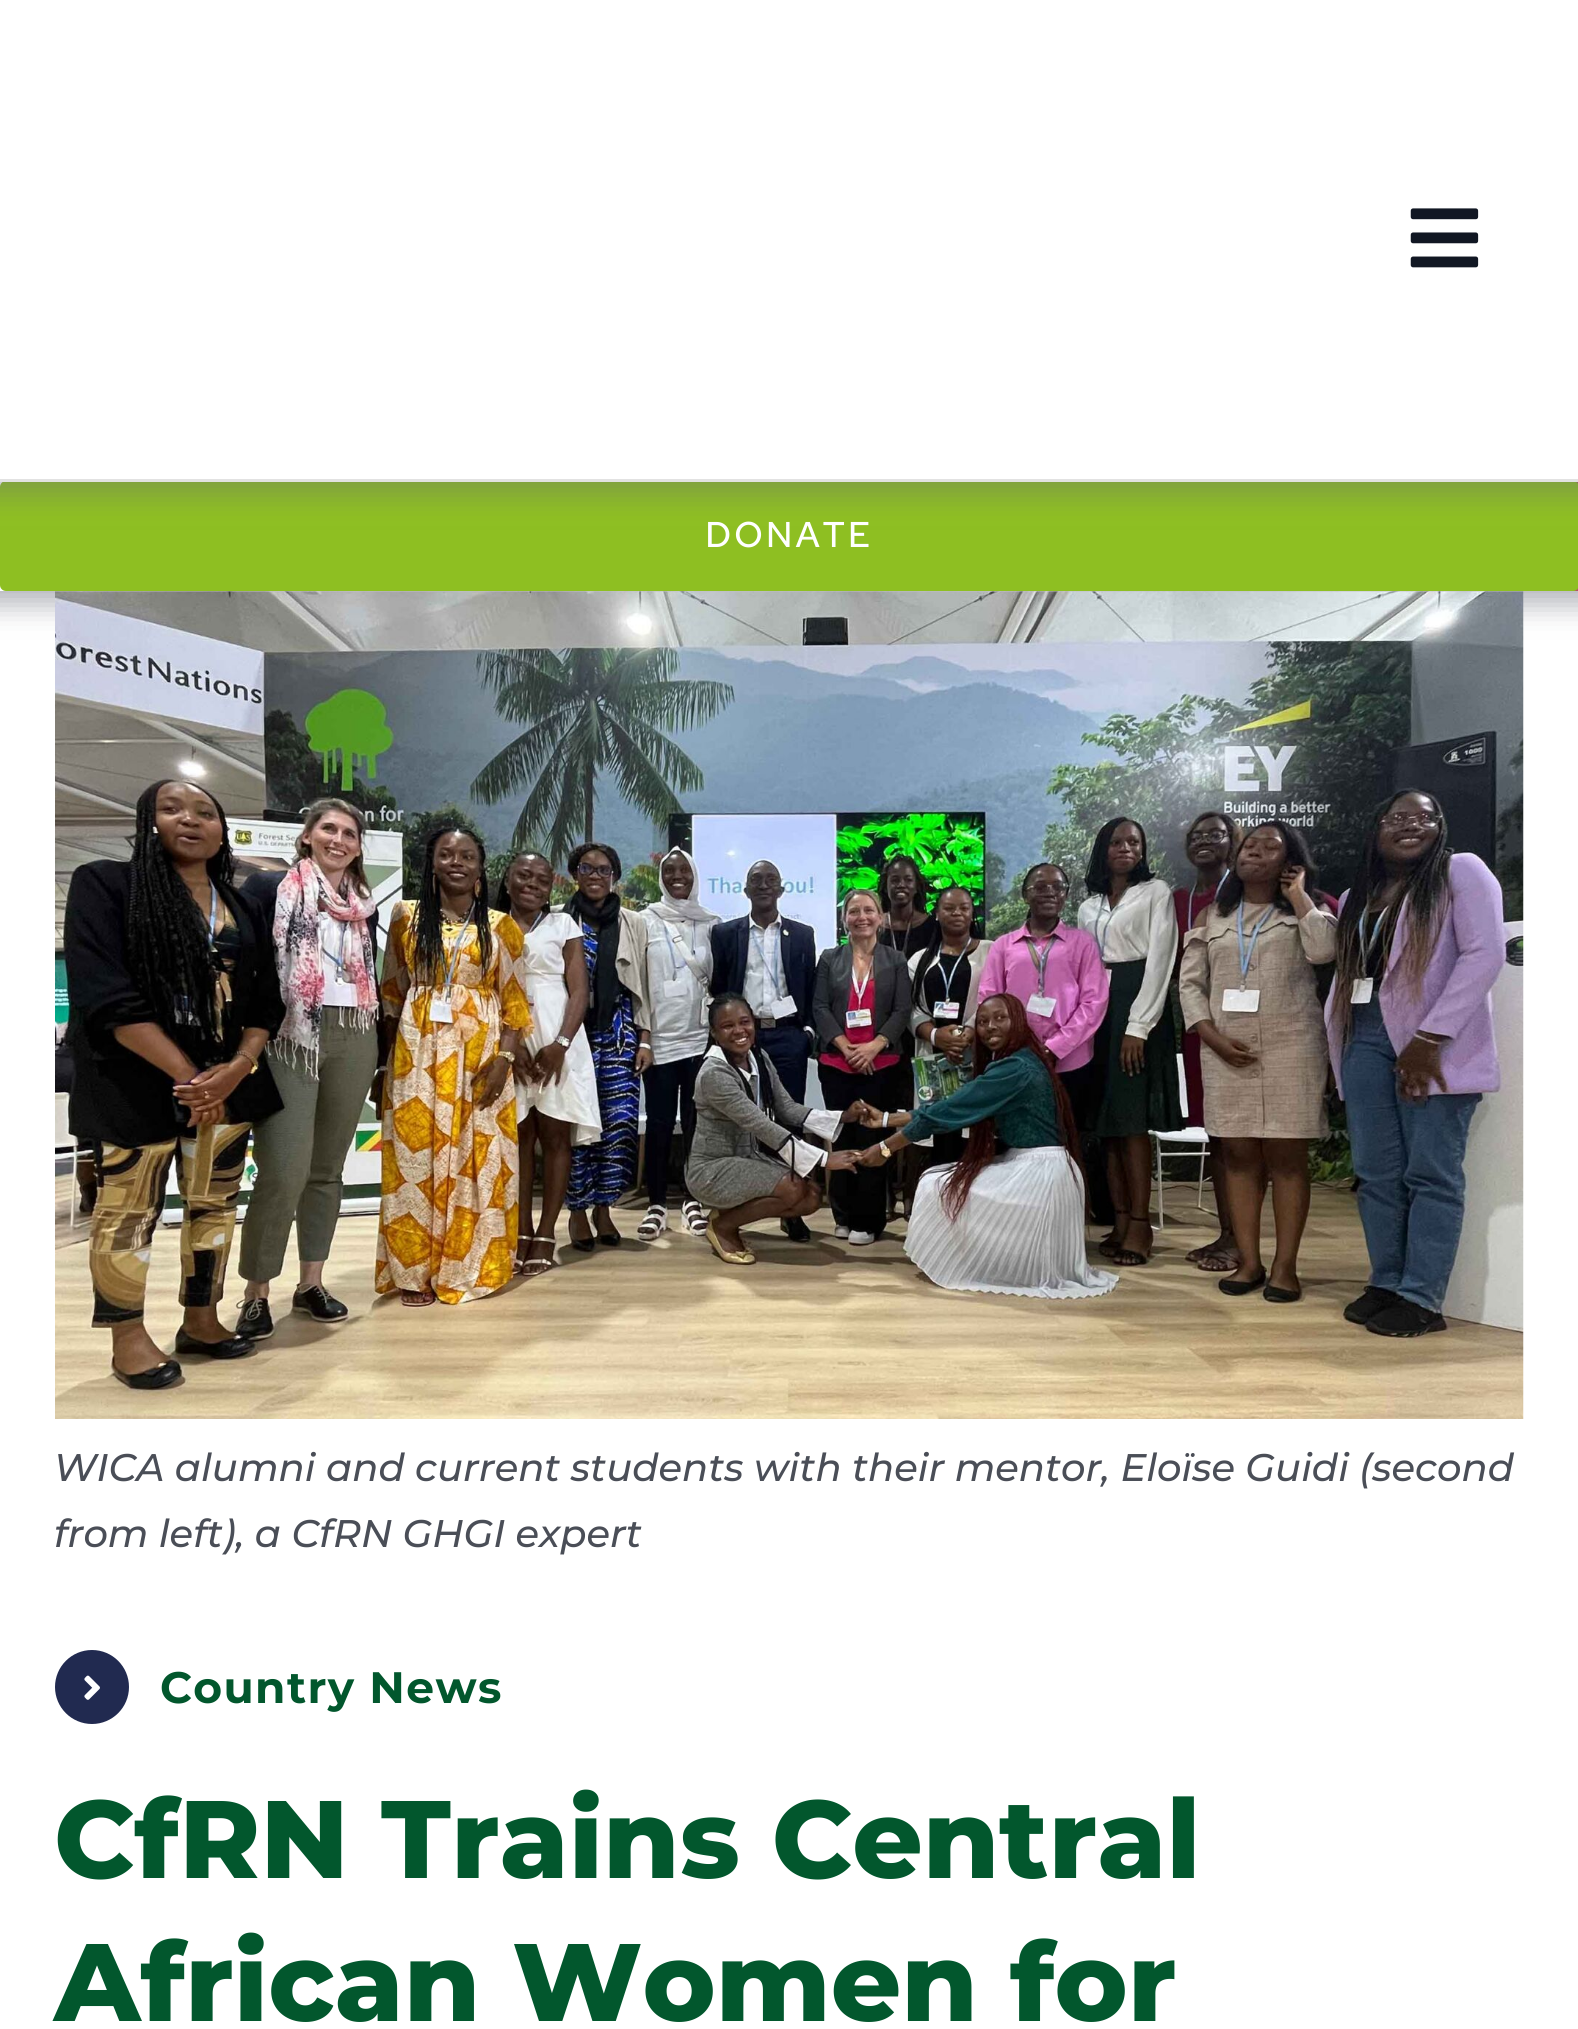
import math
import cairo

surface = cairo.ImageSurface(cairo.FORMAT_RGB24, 1578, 2029)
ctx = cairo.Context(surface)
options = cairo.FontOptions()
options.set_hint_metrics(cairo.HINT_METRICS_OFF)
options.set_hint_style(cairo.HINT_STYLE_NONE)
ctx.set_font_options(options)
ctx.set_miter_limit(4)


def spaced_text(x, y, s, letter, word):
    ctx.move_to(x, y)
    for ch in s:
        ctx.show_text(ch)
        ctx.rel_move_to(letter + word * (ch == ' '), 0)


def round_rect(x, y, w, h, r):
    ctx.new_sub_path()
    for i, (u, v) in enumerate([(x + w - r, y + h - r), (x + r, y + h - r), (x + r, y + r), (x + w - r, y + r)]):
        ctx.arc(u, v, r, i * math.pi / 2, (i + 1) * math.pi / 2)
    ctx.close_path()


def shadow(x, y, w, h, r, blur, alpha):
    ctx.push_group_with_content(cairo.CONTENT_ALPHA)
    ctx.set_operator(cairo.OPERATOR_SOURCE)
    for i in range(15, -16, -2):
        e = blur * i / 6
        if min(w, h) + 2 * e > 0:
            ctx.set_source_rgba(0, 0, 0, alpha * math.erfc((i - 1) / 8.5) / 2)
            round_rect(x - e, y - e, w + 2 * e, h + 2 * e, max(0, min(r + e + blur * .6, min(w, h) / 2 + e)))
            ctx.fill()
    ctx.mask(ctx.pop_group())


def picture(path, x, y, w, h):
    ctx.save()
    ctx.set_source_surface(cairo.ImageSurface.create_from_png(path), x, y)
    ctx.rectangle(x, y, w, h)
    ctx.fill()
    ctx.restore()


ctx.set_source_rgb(1, 1, 1)
ctx.paint()
ctx.set_source_rgb(0.412, 0.42, 0.471)
shadow(-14, 468, 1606, 137, 0, 14, 0.5)
gradient = cairo.LinearGradient(-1, 564, 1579, 509)
gradient.add_color_stop_rgba(0, 1, 1, 1, 1)
gradient.add_color_stop_rgba(1, 0.71, 0.322, 0.388, 1)
ctx.set_source(gradient)
ctx.rectangle(0, 482, 1578, 109)
ctx.fill()
ctx.set_source_rgb(0.557, 0.749, 0.133)
round_rect(1.5, 482.5, 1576, 107, 4.5)
ctx.fill_preserve()
ctx.set_line_width(3)
ctx.stroke()
ctx.set_source_rgb(0.412, 0.42, 0.471)
shadow(-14, -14, 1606, 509, 0, 14, 0.4)
ctx.set_source_rgb(1, 1, 1)
ctx.rectangle(0, 0, 1578, 479)
ctx.fill()
ctx.set_source_rgb(0.886, 0.886, 0.886)
ctx.rectangle(0, 479, 1578, 3)
ctx.fill()
picture("img1.png", 1410, 208, 69, 60)
ctx.select_font_face("Red Hat Text Medium")
ctx.set_font_size(35.75)
ctx.set_source_rgb(1, 1, 1)
spaced_text(705, 547, "DONATE", 2.75, 0)
picture("img2.png", 55, 591, 1469, 828)
ctx.select_font_face("Montserrat Medium", cairo.FONT_SLANT_ITALIC)
ctx.set_font_size(38.5)
ctx.set_source_rgb(0.29, 0.306, 0.341)
ctx.move_to(54, 1481)
ctx.show_text("WICA alumni and current students with their mentor, Eloïse Guidi (second")
ctx.move_to(54, 1547)
ctx.show_text("from left), a CfRN GHGI expert")
ctx.set_source_rgb(0.129, 0.165, 0.314)
ctx.new_path()
ctx.arc(92, 1687, 37, 0, 2 * math.pi)
ctx.fill()
picture("img3.png", 84, 1675, 16, 25)
ctx.select_font_face("Montserrat", cairo.FONT_SLANT_NORMAL, cairo.FONT_WEIGHT_BOLD)
ctx.set_font_size(44)
ctx.set_source_rgb(0.008, 0.341, 0.176)
spaced_text(160, 1703, "Country News", 1.4, 0)
ctx.select_font_face("Montserrat ExtraBold")
ctx.set_font_size(110)
ctx.move_to(54, 1878)
ctx.show_text("CfRN Trains Central")
ctx.move_to(54, 2021)
ctx.show_text("African Women for")
surface.write_to_png("page.png")
